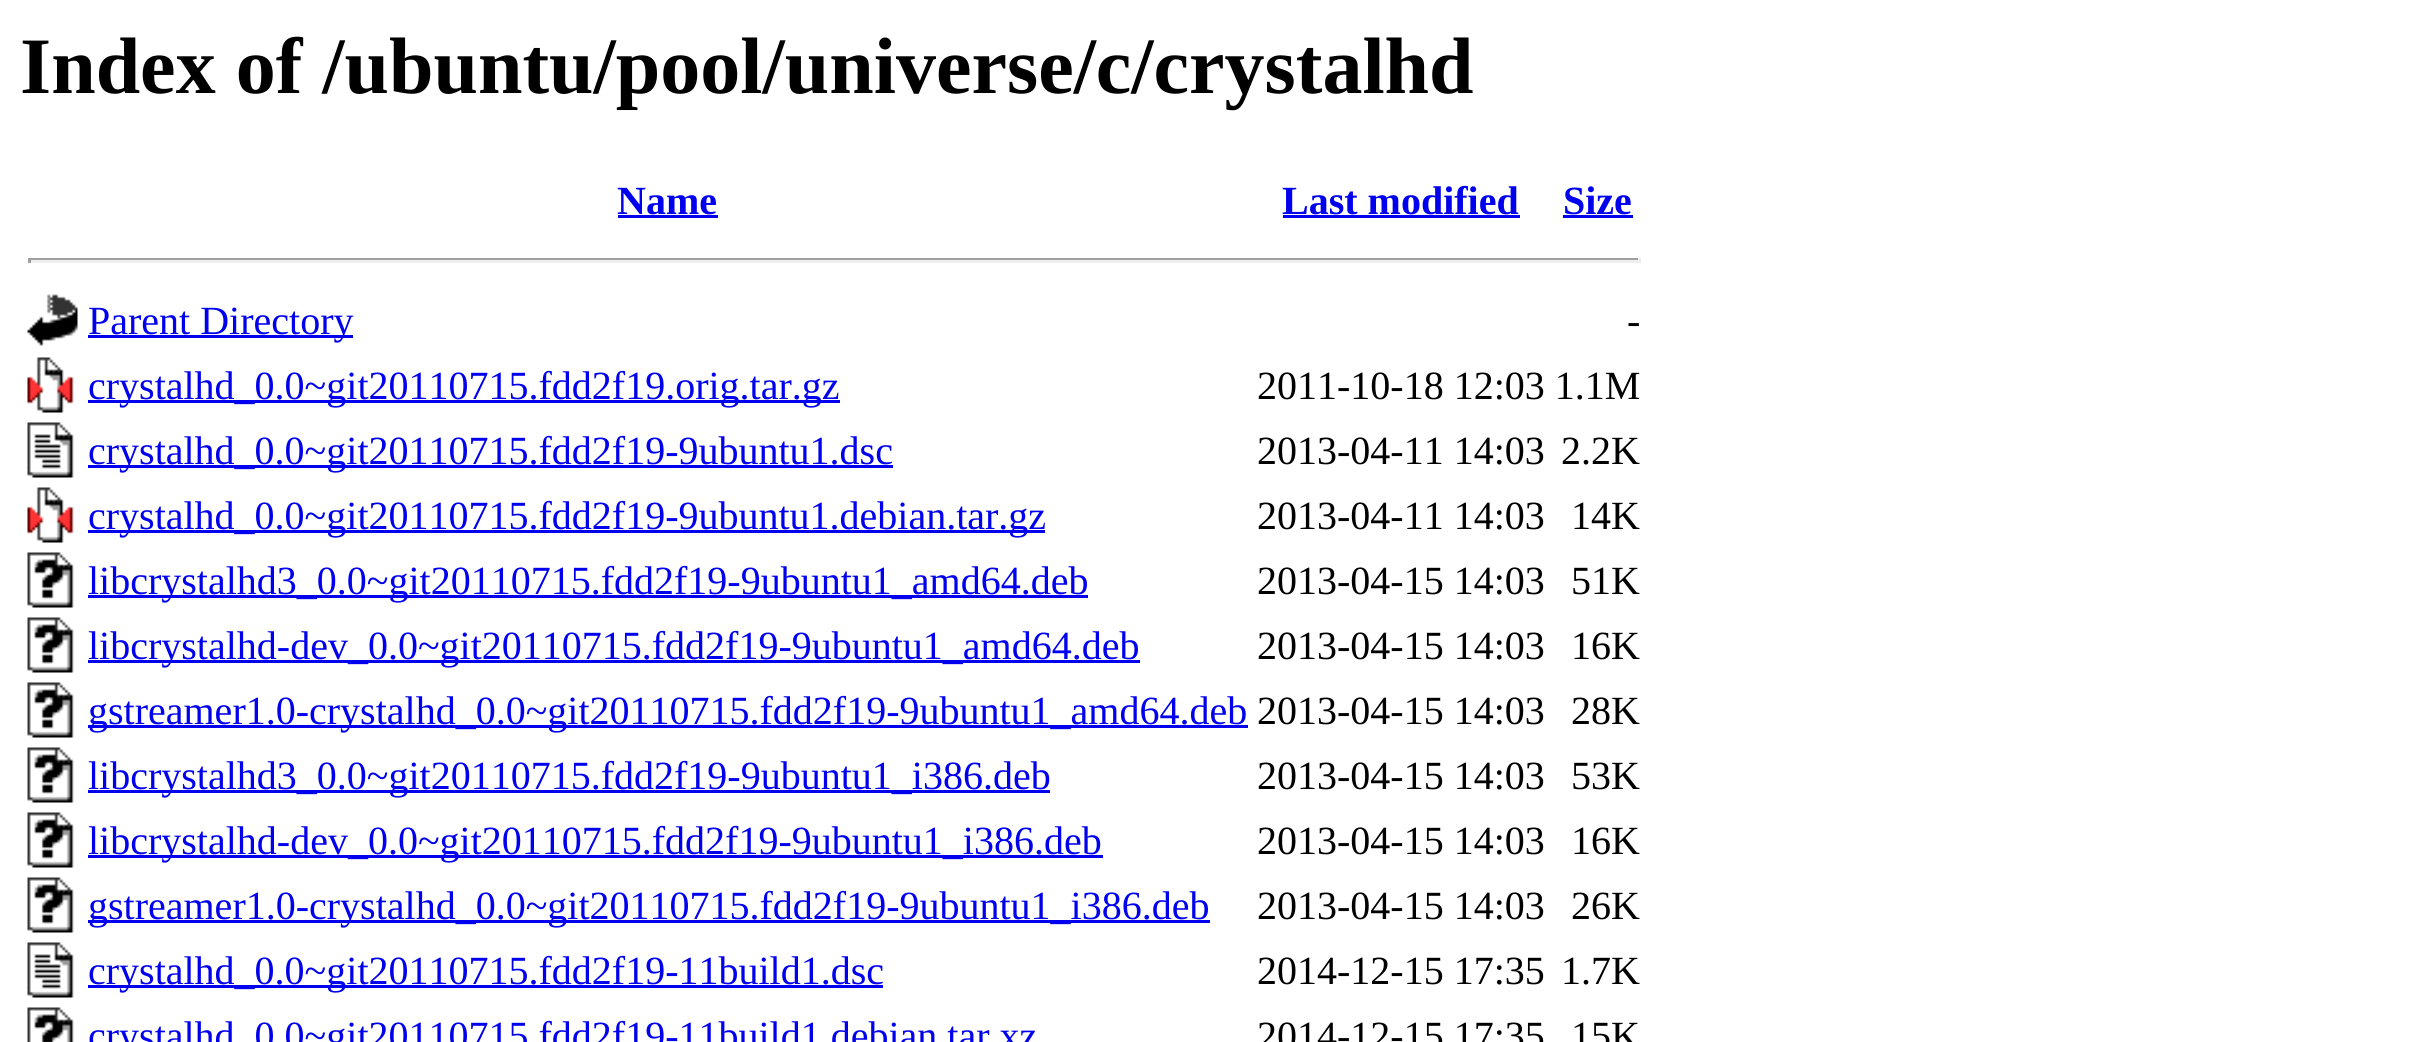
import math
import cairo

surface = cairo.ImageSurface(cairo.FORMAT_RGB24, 2413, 1042)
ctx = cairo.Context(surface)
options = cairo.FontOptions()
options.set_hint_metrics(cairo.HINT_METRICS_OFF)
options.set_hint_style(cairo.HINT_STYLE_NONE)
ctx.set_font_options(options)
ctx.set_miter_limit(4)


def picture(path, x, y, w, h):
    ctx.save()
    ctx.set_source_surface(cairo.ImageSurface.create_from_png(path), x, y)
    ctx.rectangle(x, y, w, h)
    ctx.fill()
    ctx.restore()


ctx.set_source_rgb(1, 1, 1)
ctx.paint()
ctx.select_font_face("Liberation Serif", cairo.FONT_SLANT_NORMAL, cairo.FONT_WEIGHT_BOLD)
ctx.set_font_size(80)
ctx.set_source_rgb(0, 0, 0)
ctx.move_to(20, 93)
ctx.show_text("Index of /ubuntu/pool/universe/c/crystalhd")
ctx.set_font_size(40)
ctx.set_source_rgb(0, 0, 0.933)
ctx.move_to(617, 214)
ctx.show_text("Name")
ctx.rectangle(618, 215, 100, 3)
ctx.fill()
ctx.move_to(1282, 214)
ctx.show_text("Last modified")
ctx.rectangle(1283, 215, 237, 3)
ctx.fill()
ctx.move_to(1563, 214)
ctx.show_text("Size")
ctx.rectangle(1563, 215, 70, 3)
ctx.fill()
ctx.set_source_rgb(0.624, 0.624, 0.624)
ctx.rectangle(28, 258, 1612, 2)
ctx.fill()
ctx.set_source_rgb(0.933, 0.933, 0.933)
ctx.rectangle(1638, 258, 3, 5)
ctx.fill()
ctx.rectangle(28, 260, 1612, 3)
ctx.fill()
ctx.set_source_rgb(0.624, 0.624, 0.624)
ctx.rectangle(28, 258, 3, 5)
ctx.fill()
picture("img1.png", 27, 294, 51, 52)
ctx.set_source_rgb(0, 0, 0.933)
ctx.rectangle(88, 335, 265, 3)
ctx.fill()
ctx.select_font_face("Liberation Serif")
ctx.move_to(88, 334)
ctx.show_text("Parent Directory")
ctx.set_source_rgb(0, 0, 0)
ctx.move_to(1627, 334)
ctx.show_text("-")
picture("img2.png", 27, 357, 47, 56)
ctx.set_source_rgb(0, 0, 0.933)
ctx.rectangle(88, 400, 752, 3)
ctx.fill()
ctx.move_to(88, 399)
ctx.show_text("crystalhd_0.0~git20110715.fdd2f19.orig.tar.gz")
ctx.set_source_rgb(0, 0, 0)
ctx.move_to(1257, 399)
ctx.show_text("2011-10-18 12:03 1.1M")
picture("img3.png", 27, 422, 47, 56)
ctx.set_source_rgb(0, 0, 0.933)
ctx.rectangle(88, 465, 805, 3)
ctx.fill()
ctx.move_to(88, 464)
ctx.show_text("crystalhd_0.0~git20110715.fdd2f19-9ubuntu1.dsc")
ctx.set_source_rgb(0, 0, 0)
ctx.move_to(1257, 464)
ctx.show_text("2013-04-11 14:03")
ctx.move_to(1561, 464)
ctx.show_text("2.2K")
picture("img2.png", 27, 487, 47, 56)
ctx.set_source_rgb(0, 0, 0.933)
ctx.rectangle(88, 530, 957, 3)
ctx.fill()
ctx.move_to(88, 529)
ctx.show_text("crystalhd_0.0~git20110715.fdd2f19-9ubuntu1.debian.tar.gz")
ctx.set_source_rgb(0, 0, 0)
ctx.move_to(1257, 529)
ctx.show_text("2013-04-11 14:03")
ctx.move_to(1571, 529)
ctx.show_text("14K")
picture("img4.png", 27, 552, 47, 56)
ctx.set_source_rgb(0, 0, 0.933)
ctx.rectangle(88, 595, 1000, 3)
ctx.fill()
ctx.move_to(88, 594)
ctx.show_text("libcrystalhd3_0.0~git20110715.fdd2f19-9ubuntu1_amd64.deb")
ctx.set_source_rgb(0, 0, 0)
ctx.move_to(1257, 594)
ctx.show_text("2013-04-15 14:03")
ctx.move_to(1571, 594)
ctx.show_text("51K")
picture("img5.png", 27, 617, 47, 56)
ctx.set_source_rgb(0, 0, 0.933)
ctx.rectangle(88, 660, 1052, 3)
ctx.fill()
ctx.move_to(88, 659)
ctx.show_text("libcrystalhd-dev_0.0~git20110715.fdd2f19-9ubuntu1_amd64.deb")
ctx.set_source_rgb(0, 0, 0)
ctx.move_to(1257, 659)
ctx.show_text("2013-04-15 14:03")
ctx.move_to(1571, 659)
ctx.show_text("16K")
picture("img5.png", 27, 682, 47, 56)
ctx.set_source_rgb(0, 0, 0.933)
ctx.rectangle(88, 725, 1160, 3)
ctx.fill()
ctx.move_to(88, 724)
ctx.show_text("gstreamer1.0-crystalhd_0.0~git20110715.fdd2f19-9ubuntu1_amd64.deb")
ctx.set_source_rgb(0, 0, 0)
ctx.move_to(1257, 724)
ctx.show_text("2013-04-15 14:03")
ctx.move_to(1571, 724)
ctx.show_text("28K")
picture("img5.png", 27, 747, 47, 56)
ctx.set_source_rgb(0, 0, 0.933)
ctx.rectangle(88, 790, 962, 3)
ctx.fill()
ctx.move_to(88, 789)
ctx.show_text("libcrystalhd3_0.0~git20110715.fdd2f19-9ubuntu1_i386.deb")
ctx.set_source_rgb(0, 0, 0)
ctx.move_to(1257, 789)
ctx.show_text("2013-04-15 14:03")
ctx.move_to(1571, 789)
ctx.show_text("53K")
picture("img5.png", 27, 812, 47, 56)
ctx.set_source_rgb(0, 0, 0.933)
ctx.rectangle(88, 855, 1015, 3)
ctx.fill()
ctx.move_to(88, 854)
ctx.show_text("libcrystalhd-dev_0.0~git20110715.fdd2f19-9ubuntu1_i386.deb")
ctx.set_source_rgb(0, 0, 0)
ctx.move_to(1257, 854)
ctx.show_text("2013-04-15 14:03")
ctx.move_to(1571, 854)
ctx.show_text("16K")
picture("img5.png", 27, 877, 47, 56)
ctx.set_source_rgb(0, 0, 0.933)
ctx.rectangle(88, 920, 1122, 3)
ctx.fill()
ctx.move_to(88, 919)
ctx.show_text("gstreamer1.0-crystalhd_0.0~git20110715.fdd2f19-9ubuntu1_i386.deb")
ctx.set_source_rgb(0, 0, 0)
ctx.move_to(1257, 919)
ctx.show_text("2013-04-15 14:03")
ctx.move_to(1571, 919)
ctx.show_text("26K")
picture("img3.png", 27, 942, 47, 56)
ctx.set_source_rgb(0, 0, 0.933)
ctx.rectangle(88, 985, 795, 3)
ctx.fill()
ctx.move_to(88, 984)
ctx.show_text("crystalhd_0.0~git20110715.fdd2f19-11build1.dsc")
ctx.set_source_rgb(0, 0, 0)
ctx.move_to(1257, 984)
ctx.show_text("2014-12-15 17:35")
ctx.move_to(1561, 984)
ctx.show_text("1.7K")
picture("img6.png", 27, 1007, 47, 35)
ctx.set_source_rgb(0, 0, 0.933)
ctx.move_to(88, 1049)
ctx.show_text("crystalhd_0.0~git20110715.fdd2f19-11build1.debian.tar.xz")
ctx.set_source_rgb(0, 0, 0)
ctx.move_to(1257, 1049)
ctx.show_text("2014-12-15 17:35")
ctx.move_to(1571, 1049)
ctx.show_text("15K")
surface.write_to_png("page.png")
